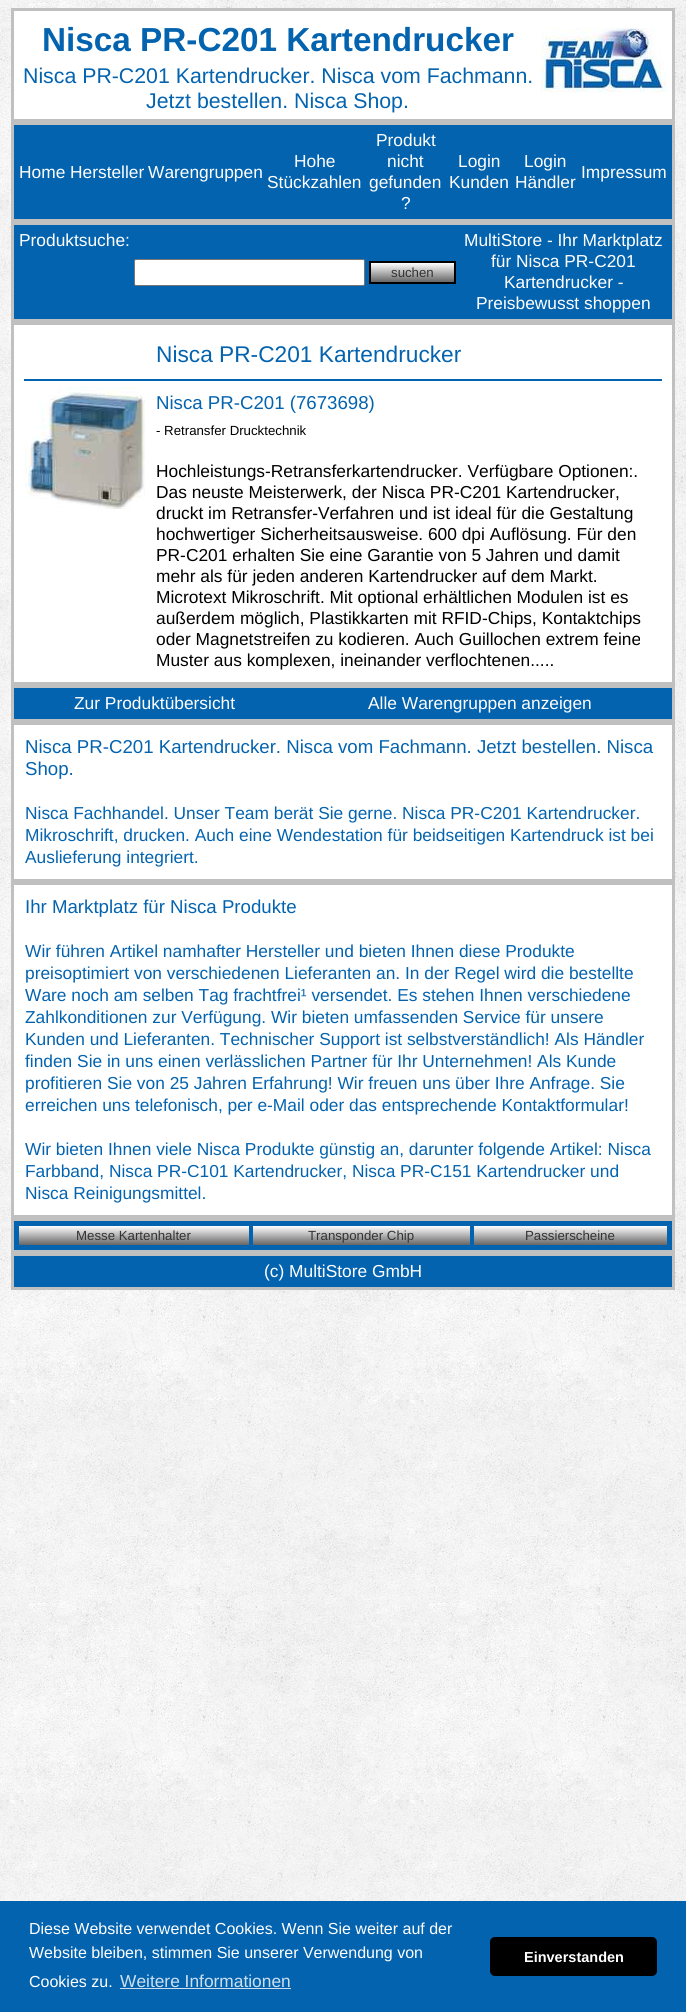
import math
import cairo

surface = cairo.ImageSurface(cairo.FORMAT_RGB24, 686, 2012)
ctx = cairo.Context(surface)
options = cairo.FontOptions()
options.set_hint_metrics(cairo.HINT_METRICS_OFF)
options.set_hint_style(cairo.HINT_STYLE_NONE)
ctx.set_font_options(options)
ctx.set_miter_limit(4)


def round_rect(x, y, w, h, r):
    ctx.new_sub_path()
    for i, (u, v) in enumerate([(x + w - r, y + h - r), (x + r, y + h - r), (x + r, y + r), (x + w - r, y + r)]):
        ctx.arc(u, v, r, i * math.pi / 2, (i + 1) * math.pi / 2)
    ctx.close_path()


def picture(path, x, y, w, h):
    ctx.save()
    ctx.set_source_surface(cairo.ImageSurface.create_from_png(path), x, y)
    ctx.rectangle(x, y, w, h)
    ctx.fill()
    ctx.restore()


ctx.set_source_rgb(1, 1, 1)
ctx.paint()
picture("img1.png", 0, 0, 686, 1901)
ctx.set_source_rgb(1, 1, 1)
ctx.rectangle(12.5, 9.5, 661, 111)
ctx.fill_preserve()
ctx.set_source_rgb(0.753, 0.753, 0.753)
ctx.set_line_width(3)
ctx.stroke()
ctx.select_font_face("Liberation Sans", cairo.FONT_SLANT_NORMAL, cairo.FONT_WEIGHT_BOLD)
ctx.set_font_size(33.3)
ctx.set_source_rgb(0.012, 0.388, 0.686)
ctx.move_to(42, 51)
ctx.show_text("Nisca PR-C201 Kartendrucker")
ctx.select_font_face("Liberation Sans")
ctx.set_font_size(21.3)
ctx.move_to(23, 83)
ctx.show_text("Nisca PR-C201 Kartendrucker. Nisca vom Fachmann.")
ctx.move_to(146, 108)
ctx.show_text("Jetzt bestellen. Nisca Shop.")
picture("img2.png", 541, 28, 126, 65)
ctx.rectangle(12.5, 123.5, 661, 97)
ctx.fill_preserve()
ctx.set_source_rgb(0.753, 0.753, 0.753)
ctx.stroke()
ctx.set_font_size(17.35)
ctx.set_source_rgb(1, 1, 1)
ctx.move_to(19, 178)
ctx.show_text("Home")
ctx.move_to(70, 178)
ctx.show_text("Hersteller")
ctx.move_to(148, 178)
ctx.show_text("Warengruppen")
ctx.move_to(294, 167)
ctx.show_text("Hohe")
ctx.move_to(267, 188)
ctx.show_text("Stückzahlen")
ctx.move_to(376, 146)
ctx.show_text("Produkt")
ctx.move_to(387, 167)
ctx.show_text("nicht")
ctx.move_to(369, 188)
ctx.show_text("gefunden")
ctx.move_to(401, 209)
ctx.show_text("?")
ctx.move_to(458, 167)
ctx.show_text("Login")
ctx.move_to(449, 188)
ctx.show_text("Kunden")
ctx.move_to(524, 167)
ctx.show_text("Login")
ctx.move_to(515, 188)
ctx.show_text("Händler")
ctx.move_to(581, 178)
ctx.show_text("Impressum")
ctx.set_source_rgb(0.012, 0.388, 0.686)
ctx.rectangle(12.5, 223.5, 661, 97)
ctx.fill_preserve()
ctx.set_source_rgb(0.753, 0.753, 0.753)
ctx.stroke()
ctx.set_source_rgb(1, 1, 1)
ctx.move_to(19, 246)
ctx.show_text("Produktsuche:")
round_rect(134.5, 259.5, 230, 26, 1.5)
ctx.fill_preserve()
ctx.set_source_rgb(0.463, 0.463, 0.463)
ctx.set_line_width(1)
ctx.stroke()
gradient = cairo.LinearGradient(413, 263, 413, 282)
gradient.add_color_stop_rgba(0, 1, 1, 1, 1)
gradient.add_color_stop_rgba(1, 0.4, 0.4, 0.4, 1)
ctx.set_source(gradient)
ctx.rectangle(371, 263, 83, 19)
ctx.fill()
ctx.rectangle(370, 262, 85, 21)
ctx.set_source_rgb(0, 0, 0)
ctx.set_line_width(2)
ctx.stroke()
ctx.set_font_size(13.25)
ctx.set_source_rgb(0.2, 0.2, 0.2)
ctx.move_to(391, 277)
ctx.show_text("suchen")
ctx.set_font_size(17.35)
ctx.set_source_rgb(1, 1, 1)
ctx.move_to(464, 246)
ctx.show_text("MultiStore - Ihr Marktplatz")
ctx.move_to(491, 267)
ctx.show_text("für Nisca PR-C201")
ctx.move_to(504, 288)
ctx.show_text("Kartendrucker -")
ctx.move_to(476, 309)
ctx.show_text("Preisbewusst shoppen")
ctx.rectangle(12.5, 323.5, 661, 360)
ctx.fill_preserve()
ctx.set_source_rgb(0.753, 0.753, 0.753)
ctx.set_line_width(3)
ctx.stroke()
ctx.set_font_size(22.7)
ctx.set_source_rgb(0.012, 0.388, 0.686)
ctx.move_to(156, 362)
ctx.show_text("Nisca PR-C201 Kartendrucker")
ctx.rectangle(24, 379, 638, 2)
ctx.fill()
picture("img3.png", 25, 387, 120, 122)
ctx.set_font_size(18.65)
ctx.move_to(156, 409)
ctx.show_text("Nisca PR-C201 (7673698)")
ctx.set_font_size(13.25)
ctx.set_source_rgb(0, 0, 0)
ctx.move_to(156, 435)
ctx.show_text("- Retransfer Drucktechnik")
ctx.set_font_size(17.35)
ctx.move_to(156, 477)
ctx.show_text("Hochleistungs-Retransferkartendrucker. Verfügbare Optionen:.")
ctx.move_to(156, 498)
ctx.show_text("Das neuste Meisterwerk, der Nisca PR-C201 Kartendrucker,")
ctx.move_to(156, 519)
ctx.show_text("druckt im Retransfer-Verfahren und ist ideal für die Gestaltung")
ctx.move_to(156, 540)
ctx.show_text("hochwertiger Sicherheitsausweise. 600 dpi Auflösung. Für den")
ctx.move_to(156, 561)
ctx.show_text("PR-C201 erhalten Sie eine Garantie von 5 Jahren und damit")
ctx.move_to(156, 582)
ctx.show_text("mehr als für jeden anderen Kartendrucker auf dem Markt.")
ctx.move_to(156, 603)
ctx.show_text("Microtext Mikroschrift. Mit optional erhältlichen Modulen ist es")
ctx.move_to(156, 624)
ctx.show_text("außerdem möglich, Plastikkarten mit RFID-Chips, Kontaktchips")
ctx.move_to(156, 645)
ctx.show_text("oder Magnetstreifen zu kodieren. Auch Guillochen extrem feine")
ctx.move_to(156, 666)
ctx.show_text("Muster aus komplexen, ineinander verflochtenen.....")
ctx.set_source_rgb(0.012, 0.388, 0.686)
ctx.rectangle(12.5, 686.5, 661, 34)
ctx.fill_preserve()
ctx.set_source_rgb(0.753, 0.753, 0.753)
ctx.stroke()
ctx.set_source_rgb(1, 1, 1)
ctx.move_to(74, 709)
ctx.show_text("Zur Produktübersicht")
ctx.move_to(368, 709)
ctx.show_text("Alle Warengruppen anzeigen")
ctx.rectangle(12.5, 723.5, 661, 157)
ctx.fill_preserve()
ctx.set_source_rgb(0.753, 0.753, 0.753)
ctx.stroke()
ctx.set_font_size(18.65)
ctx.set_source_rgb(0.012, 0.388, 0.686)
ctx.move_to(25, 753)
ctx.show_text("Nisca PR-C201 Kartendrucker. Nisca vom Fachmann. Jetzt bestellen. Nisca")
ctx.move_to(25, 775)
ctx.show_text("Shop.")
ctx.set_font_size(17.35)
ctx.move_to(25, 819)
ctx.show_text("Nisca Fachhandel. Unser Team berät Sie gerne. Nisca PR-C201 Kartendrucker.")
ctx.move_to(25, 841)
ctx.show_text("Mikroschrift, drucken. Auch eine Wendestation für beidseitigen Kartendruck ist bei")
ctx.move_to(25, 863)
ctx.show_text("Auslieferung integriert.")
ctx.set_source_rgb(1, 1, 1)
ctx.rectangle(12.5, 883.5, 661, 333)
ctx.fill_preserve()
ctx.set_source_rgb(0.753, 0.753, 0.753)
ctx.stroke()
ctx.set_font_size(18.65)
ctx.set_source_rgb(0.012, 0.388, 0.686)
ctx.move_to(25, 913)
ctx.show_text("Ihr Marktplatz für Nisca Produkte")
ctx.set_font_size(17.35)
ctx.move_to(25, 957)
ctx.show_text("Wir führen Artikel namhafter Hersteller und bieten Ihnen diese Produkte")
ctx.move_to(25, 979)
ctx.show_text("preisoptimiert von verschiedenen Lieferanten an. In der Regel wird die bestellte")
ctx.move_to(25, 1001)
ctx.show_text("Ware noch am selben Tag frachtfrei¹ versendet. Es stehen Ihnen verschiedene")
ctx.move_to(25, 1023)
ctx.show_text("Zahlkonditionen zur Verfügung. Wir bieten umfassenden Service für unsere")
ctx.move_to(25, 1045)
ctx.show_text("Kunden und Lieferanten. Technischer Support ist selbstverständlich! Als Händler")
ctx.move_to(25, 1067)
ctx.show_text("finden Sie in uns einen verlässlichen Partner für Ihr Unternehmen! Als Kunde")
ctx.move_to(25, 1089)
ctx.show_text("profitieren Sie von 25 Jahren Erfahrung! Wir freuen uns über Ihre Anfrage. Sie")
ctx.move_to(25, 1111)
ctx.show_text("erreichen uns telefonisch, per e-Mail oder das entsprechende Kontaktformular!")
ctx.move_to(25, 1155)
ctx.show_text("Wir bieten Ihnen viele Nisca Produkte günstig an, darunter folgende Artikel: Nisca")
ctx.move_to(25, 1177)
ctx.show_text("Farbband, Nisca PR-C101 Kartendrucker, Nisca PR-C151 Kartendrucker und")
ctx.move_to(25, 1199)
ctx.show_text("Nisca Reinigungsmittel.")
ctx.rectangle(12.5, 1219.5, 661, 32)
ctx.fill_preserve()
ctx.set_source_rgb(0.753, 0.753, 0.753)
ctx.stroke()
gradient = cairo.LinearGradient(134, 1226, 134, 1245)
gradient.add_color_stop_rgba(0, 1, 1, 1, 1)
gradient.add_color_stop_rgba(1, 0.4, 0.4, 0.4, 1)
ctx.set_source(gradient)
ctx.rectangle(19, 1226, 230, 19)
ctx.fill()
ctx.set_font_size(13.25)
ctx.set_source_rgb(0.2, 0.2, 0.2)
ctx.move_to(76, 1240)
ctx.show_text("Messe Kartenhalter")
gradient = cairo.LinearGradient(362, 1226, 362, 1245)
gradient.add_color_stop_rgba(0, 1, 1, 1, 1)
gradient.add_color_stop_rgba(1, 0.4, 0.4, 0.4, 1)
ctx.set_source(gradient)
ctx.rectangle(253, 1226, 217, 19)
ctx.fill()
ctx.set_source_rgb(0.2, 0.2, 0.2)
ctx.move_to(308, 1240)
ctx.show_text("Transponder Chip")
gradient = cairo.LinearGradient(571, 1226, 571, 1245)
gradient.add_color_stop_rgba(0, 1, 1, 1, 1)
gradient.add_color_stop_rgba(1, 0.4, 0.4, 0.4, 1)
ctx.set_source(gradient)
ctx.rectangle(474, 1226, 193, 19)
ctx.fill()
ctx.set_source_rgb(0.2, 0.2, 0.2)
ctx.move_to(525, 1240)
ctx.show_text("Passierscheine")
ctx.set_source_rgb(0.012, 0.388, 0.686)
ctx.rectangle(12.5, 1254.5, 661, 34)
ctx.fill_preserve()
ctx.set_source_rgb(0.753, 0.753, 0.753)
ctx.stroke()
ctx.set_font_size(17.35)
ctx.set_source_rgb(1, 1, 1)
ctx.move_to(264, 1277)
ctx.show_text("(c) MultiStore GmbH")
ctx.set_source_rgb(0.012, 0.388, 0.686)
ctx.rectangle(0, 1901, 686, 111)
ctx.fill()
ctx.set_font_size(16)
ctx.set_source_rgb(1, 1, 1)
ctx.move_to(29, 1934)
ctx.show_text("Diese Website verwendet Cookies. Wenn Sie weiter auf der")
ctx.move_to(29, 1958)
ctx.show_text("Website bleiben, stimmen Sie unserer Verwendung von")
ctx.move_to(29, 1987)
ctx.show_text("Cookies zu.")
ctx.set_font_size(17.35)
ctx.set_source_rgb(0.804, 0.878, 0.937)
ctx.move_to(120, 1987)
ctx.show_text("Weitere Informationen")
ctx.rectangle(120, 1988, 171, 1)
ctx.fill()
ctx.set_source_rgb(0, 0, 0)
round_rect(490, 1937, 167, 39, 5)
ctx.fill()
ctx.select_font_face("Liberation Sans", cairo.FONT_SLANT_NORMAL, cairo.FONT_WEIGHT_BOLD)
ctx.set_font_size(14.5)
ctx.set_source_rgb(1, 1, 1)
ctx.move_to(524, 1962)
ctx.show_text("Einverstanden")
surface.write_to_png("page.png")
